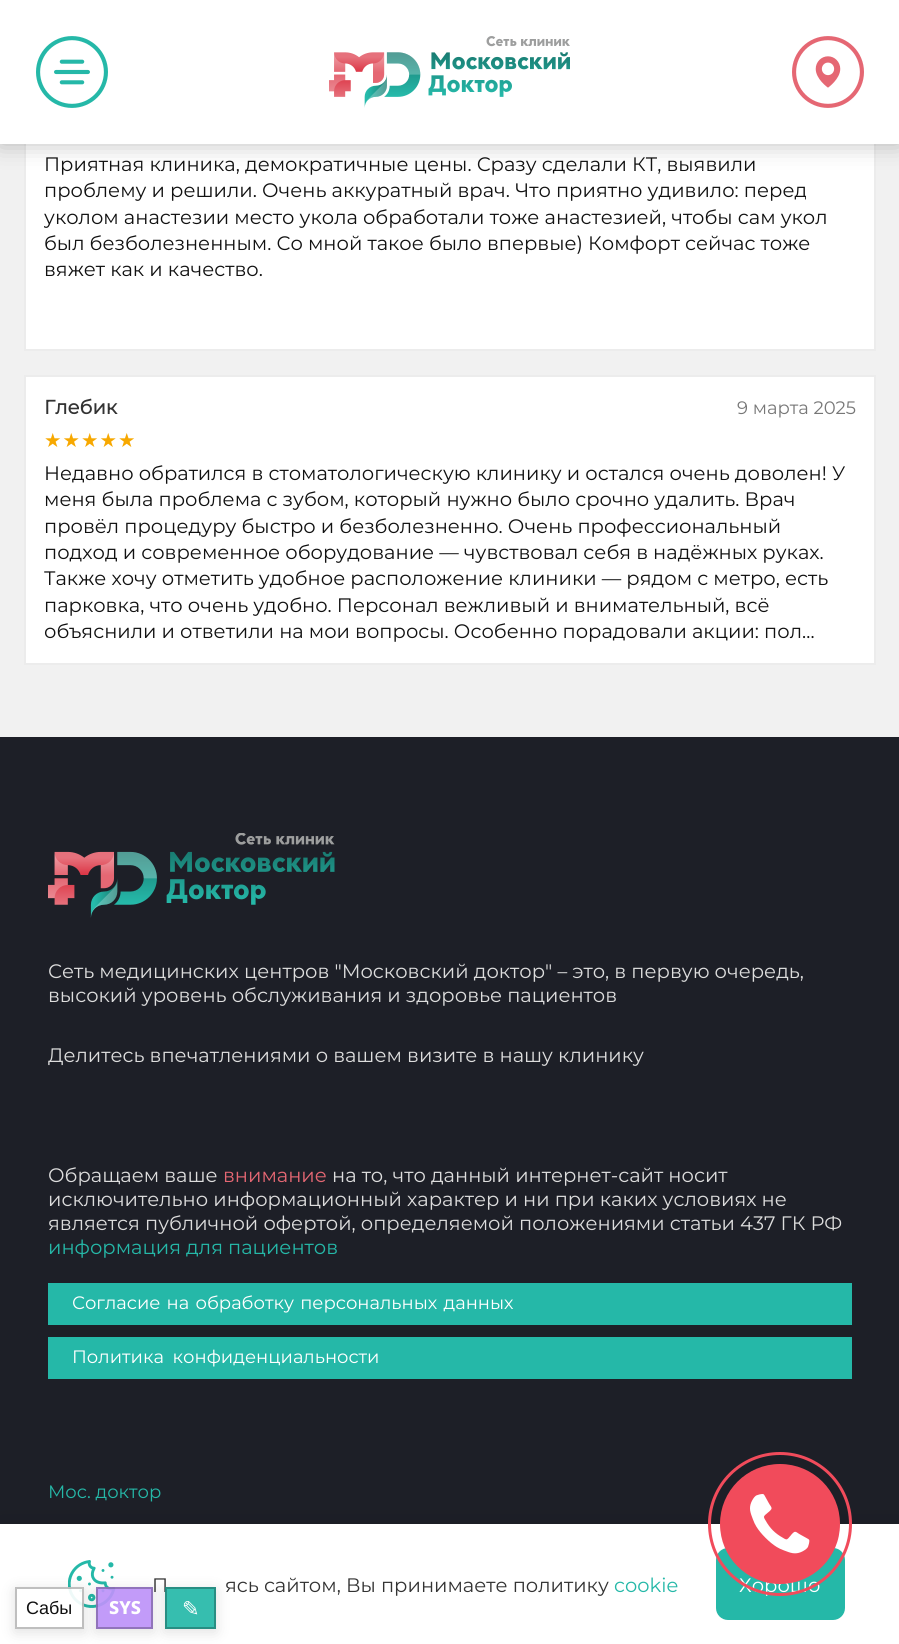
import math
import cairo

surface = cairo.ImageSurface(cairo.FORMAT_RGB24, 899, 1644)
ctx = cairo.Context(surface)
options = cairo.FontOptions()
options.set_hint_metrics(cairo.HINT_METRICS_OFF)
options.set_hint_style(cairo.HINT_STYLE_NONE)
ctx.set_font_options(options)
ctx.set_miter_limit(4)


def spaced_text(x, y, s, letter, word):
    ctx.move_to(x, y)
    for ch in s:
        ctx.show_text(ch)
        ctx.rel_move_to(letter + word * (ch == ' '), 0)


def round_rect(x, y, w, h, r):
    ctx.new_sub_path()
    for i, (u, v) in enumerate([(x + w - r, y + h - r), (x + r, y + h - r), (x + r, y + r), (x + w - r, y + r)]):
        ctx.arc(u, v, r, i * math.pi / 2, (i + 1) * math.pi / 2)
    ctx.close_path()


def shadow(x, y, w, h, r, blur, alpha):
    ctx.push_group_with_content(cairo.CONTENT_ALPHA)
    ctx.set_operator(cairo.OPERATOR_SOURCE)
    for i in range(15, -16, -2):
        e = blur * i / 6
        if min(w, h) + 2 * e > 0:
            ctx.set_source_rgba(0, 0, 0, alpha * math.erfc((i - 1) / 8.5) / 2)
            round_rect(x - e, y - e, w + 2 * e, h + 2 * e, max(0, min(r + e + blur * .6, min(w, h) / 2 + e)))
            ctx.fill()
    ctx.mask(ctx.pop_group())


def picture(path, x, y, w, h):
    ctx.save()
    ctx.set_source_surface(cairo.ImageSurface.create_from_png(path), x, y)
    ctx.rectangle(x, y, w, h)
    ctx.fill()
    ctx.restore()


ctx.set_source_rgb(0.945, 0.945, 0.945)
ctx.paint()
ctx.set_source_rgb(1, 1, 1)
ctx.rectangle(26, 144, 848, 205)
ctx.fill()
ctx.rectangle(25, 67, 850, 283)
ctx.set_source_rgb(0.922, 0.922, 0.922)
ctx.stroke()
ctx.set_source_rgb(0, 0, 0)
shadow(0, 0, 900, 144, 0, 12, 0.25)
ctx.set_source_rgb(1, 1, 1)
ctx.rectangle(0, 0, 899, 144)
ctx.fill()
picture("img1.png", 36, 36, 72, 72)
picture("img2.png", 329, 36, 241, 72)
picture("img3.png", 792, 36, 72, 72)
ctx.select_font_face("Montserrat")
ctx.set_font_size(19.5)
ctx.set_source_rgb(0.067, 0.067, 0.067)
ctx.move_to(44, 171)
ctx.show_text("Приятная клиника, демократичные цены. Сразу сделали КТ, выявили")
ctx.move_to(44, 197)
ctx.show_text("проблему и решили. Очень аккуратный врач. Что приятно удивило: перед")
ctx.save()
ctx.rectangle(44, 152, 813, 180)
ctx.clip()
ctx.move_to(44, 224)
ctx.show_text("уколом анастезии место укола обработали тоже анастезией, чтобы сам укол")
ctx.restore()
ctx.move_to(44, 250)
ctx.show_text("был безболезненным. Со мной такое было впервые) Комфорт сейчас тоже")
ctx.move_to(44, 276)
ctx.show_text("вяжет как и качество.")
ctx.set_source_rgb(1, 1, 1)
ctx.rectangle(25, 376, 850, 288)
ctx.fill_preserve()
ctx.set_source_rgb(0.922, 0.922, 0.922)
ctx.stroke()
ctx.select_font_face("Montserrat", cairo.FONT_SLANT_NORMAL, cairo.FONT_WEIGHT_BOLD)
ctx.set_source_rgb(0.2, 0.2, 0.2)
ctx.move_to(44, 414)
ctx.show_text("Глебик")
ctx.select_font_face("Montserrat")
ctx.set_font_size(18)
ctx.set_source_rgb(0.467, 0.467, 0.467)
ctx.move_to(737, 414)
ctx.show_text("9 марта 2025")
ctx.select_font_face("DejaVu Sans")
ctx.set_font_size(19.5)
ctx.set_source_rgb(0.965, 0.659, 0)
spaced_text(44, 447, "★★★★★", 1, 0)
ctx.select_font_face("Montserrat")
ctx.set_source_rgb(0.067, 0.067, 0.067)
ctx.move_to(44, 480)
ctx.show_text("Недавно обратился в стоматологическую клинику и остался очень доволен! У")
ctx.move_to(44, 506)
ctx.show_text("меня была проблема с зубом, который нужно было срочно удалить. Врач")
ctx.move_to(44, 533)
ctx.show_text("провёл процедуру быстро и безболезненно. Очень профессиональный")
ctx.move_to(44, 559)
ctx.show_text("подход и современное оборудование — чувствовал себя в надёжных руках.")
ctx.move_to(44, 585)
ctx.show_text("Также хочу отметить удобное расположение клиники — рядом с метро, есть")
ctx.move_to(44, 612)
ctx.show_text("парковка, что очень удобно. Персонал вежливый и внимательный, всё")
ctx.move_to(44, 638)
ctx.show_text("объяснили и ответили на мои вопросы. Особенно порадовали акции: пол…")
ctx.set_source_rgb(0.114, 0.122, 0.153)
ctx.rectangle(0, 737, 899, 787)
ctx.fill()
picture("img4.png", 48, 833, 287, 85)
ctx.set_source_rgb(0.867, 0.867, 0.867)
ctx.move_to(48, 978)
ctx.show_text("Сеть медицинских центров \"Московский доктор\" – это, в первую очередь,")
ctx.move_to(48, 1002)
ctx.show_text("высокий уровень обслуживания и здоровье пациентов")
ctx.move_to(48, 1062)
ctx.show_text("Делитесь впечатлениями о вашем визите в нашу клинику")
ctx.move_to(48, 1182)
ctx.show_text("Обращаем ваше")
ctx.set_source_rgb(0.898, 0.404, 0.451)
ctx.move_to(223, 1182)
ctx.show_text("внимание")
ctx.set_source_rgb(0.867, 0.867, 0.867)
ctx.move_to(332, 1182)
ctx.show_text("на то, что данный интернет-сайт носит")
ctx.move_to(48, 1206)
ctx.show_text("исключительно информационный характер и ни при каких условиях не")
ctx.move_to(48, 1230)
ctx.show_text("является публичной офертой, определяемой положениями статьи 437 ГК РФ")
ctx.set_source_rgb(0.145, 0.722, 0.659)
ctx.move_to(48, 1254)
ctx.show_text("информация для пациентов")
ctx.rectangle(48, 1283, 804, 42)
ctx.fill()
ctx.set_font_size(18)
ctx.set_source_rgb(1, 1, 1)
spaced_text(72, 1309, "Согласие на обработку персональных данных", 0, 1.5)
ctx.set_source_rgb(0.145, 0.722, 0.659)
ctx.rectangle(48, 1337, 804, 42)
ctx.fill()
ctx.set_source_rgb(1, 1, 1)
spaced_text(72, 1363, "Политика конфиденциальности", 0, 4)
ctx.set_source_rgb(0.145, 0.722, 0.659)
ctx.move_to(48, 1498)
ctx.show_text("Мос. доктор")
ctx.set_source_rgb(0, 0, 0)
shadow(0, 1524, 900, 120, 0, 12, 0.1)
ctx.set_source_rgb(1, 1, 1)
ctx.rectangle(0, 1524, 899, 120)
ctx.fill()
picture("img5.png", 68, 1560, 48, 48)
ctx.set_font_size(19.5)
ctx.set_source_rgb(0.2, 0.2, 0.2)
ctx.move_to(152, 1592)
ctx.show_text("П")
ctx.move_to(225, 1592)
ctx.show_text("ясь сайтом, Вы принимаете политику")
ctx.set_source_rgb(0.145, 0.722, 0.659)
ctx.move_to(614, 1592)
ctx.show_text("cookie")
round_rect(716, 1548, 129, 72, 12)
ctx.fill()
ctx.set_source_rgb(1, 1, 1)
ctx.move_to(739, 1592)
ctx.show_text("Хорошо")
ctx.new_path()
ctx.arc(780, 1524, 70.5, 0, 2 * math.pi)
ctx.set_source_rgb(0.945, 0.294, 0.357)
ctx.set_line_width(3)
ctx.stroke()
ctx.arc(780, 1524, 60, 0, 2 * math.pi)
ctx.fill()
picture("img6.png", 750, 1494, 60, 60)
ctx.save()
ctx.set_fill_rule(cairo.FILL_RULE_EVEN_ODD)
ctx.new_path()
ctx.move_to(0, 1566)
ctx.line_to(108, 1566)
ctx.line_to(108, 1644)
ctx.line_to(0, 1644)
ctx.close_path()
ctx.move_to(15, 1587)
ctx.line_to(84, 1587)
ctx.line_to(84, 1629)
ctx.line_to(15, 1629)
ctx.close_path()
ctx.clip()
ctx.set_source_rgb(0, 0, 0)
shadow(15, 1590, 69, 42, 0, 7.5, 0.12)
ctx.restore()
ctx.set_source_rgba(1, 1, 1, 0.92)
ctx.rectangle(68, 1587, 16, 20)
ctx.fill()
ctx.rectangle(16, 1588, 67, 40)
ctx.set_source_rgba(0, 0, 0, 0.25)
ctx.set_line_width(2)
ctx.stroke()
ctx.select_font_face("Liberation Sans")
ctx.set_font_size(18)
ctx.set_source_rgb(0.067, 0.067, 0.067)
ctx.move_to(26, 1614)
ctx.show_text("Сабы")
ctx.save()
ctx.set_fill_rule(cairo.FILL_RULE_EVEN_ODD)
ctx.new_path()
ctx.move_to(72, 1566)
ctx.line_to(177, 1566)
ctx.line_to(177, 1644)
ctx.line_to(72, 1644)
ctx.close_path()
ctx.move_to(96, 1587)
ctx.line_to(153, 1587)
ctx.line_to(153, 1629)
ctx.line_to(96, 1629)
ctx.close_path()
ctx.clip()
ctx.set_source_rgb(0, 0, 0)
shadow(96, 1590, 57, 42, 0, 7.5, 0.12)
ctx.restore()
ctx.set_source_rgba(0.741, 0.576, 0.976, 0.92)
ctx.rectangle(96, 1587, 57, 42)
ctx.fill()
ctx.rectangle(97, 1588, 55, 40)
ctx.set_source_rgba(0, 0, 0, 0.25)
ctx.stroke()
ctx.select_font_face("Noto Sans ExtraBold")
ctx.set_source_rgb(1, 1, 1)
ctx.move_to(109, 1614)
ctx.show_text("SYS")
ctx.save()
ctx.set_fill_rule(cairo.FILL_RULE_EVEN_ODD)
ctx.new_path()
ctx.move_to(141, 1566)
ctx.line_to(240, 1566)
ctx.line_to(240, 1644)
ctx.line_to(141, 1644)
ctx.close_path()
ctx.move_to(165, 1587)
ctx.line_to(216, 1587)
ctx.line_to(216, 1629)
ctx.line_to(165, 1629)
ctx.close_path()
ctx.clip()
ctx.set_source_rgb(0, 0, 0)
shadow(165, 1590, 51, 42, 0, 7.5, 0.12)
ctx.restore()
ctx.set_source_rgba(0.145, 0.722, 0.659, 0.92)
ctx.rectangle(165, 1587, 51, 42)
ctx.fill()
ctx.rectangle(166, 1588, 49, 40)
ctx.set_source_rgba(0, 0, 0, 0.25)
ctx.stroke()
ctx.select_font_face("DejaVu Sans")
ctx.set_font_size(21)
ctx.set_source_rgb(1, 1, 1)
ctx.move_to(182, 1616)
ctx.show_text("✎")
surface.write_to_png("page.png")
